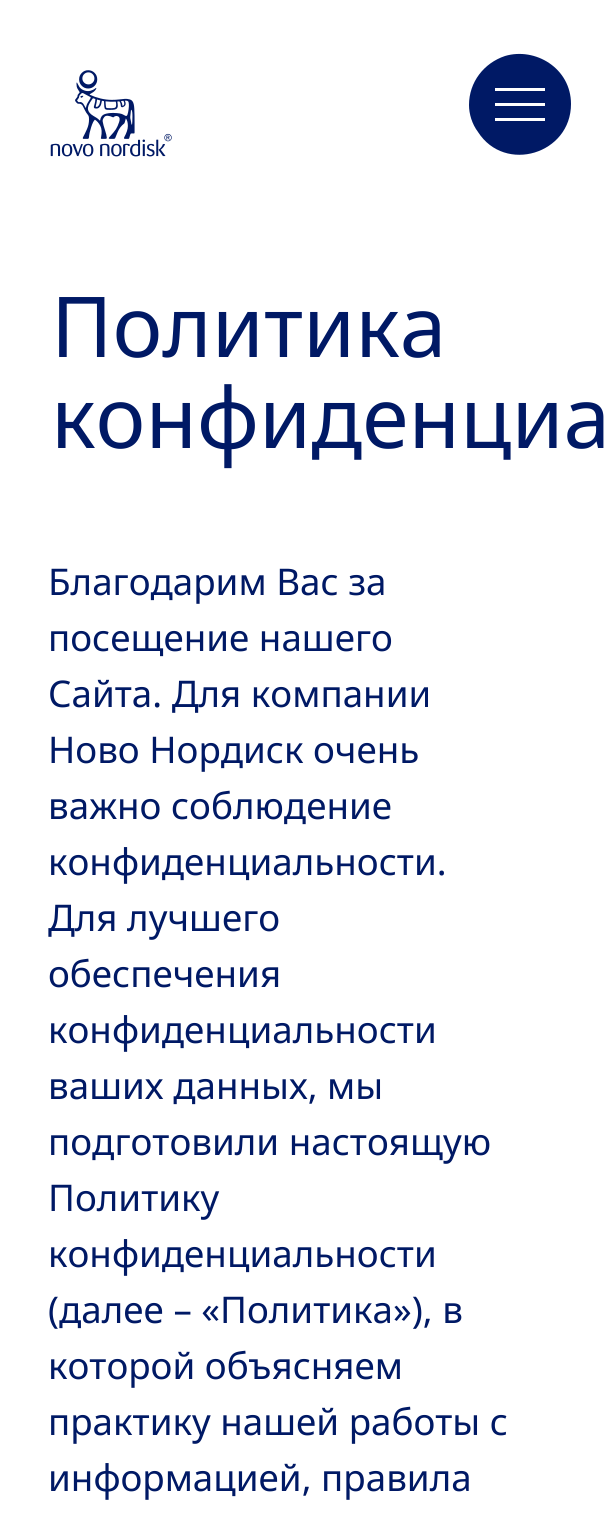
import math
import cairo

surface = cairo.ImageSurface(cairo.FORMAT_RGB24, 606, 1516)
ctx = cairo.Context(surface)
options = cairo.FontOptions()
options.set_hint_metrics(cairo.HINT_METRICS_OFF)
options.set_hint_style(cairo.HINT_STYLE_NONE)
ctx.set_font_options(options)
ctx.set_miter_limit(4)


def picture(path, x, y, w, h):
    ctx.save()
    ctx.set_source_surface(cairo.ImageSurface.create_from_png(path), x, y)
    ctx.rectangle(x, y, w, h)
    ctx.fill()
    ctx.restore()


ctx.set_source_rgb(1, 1, 1)
ctx.paint()
picture("img1.png", 50, 70, 122, 87)
ctx.set_source_rgb(0, 0.098, 0.396)
ctx.new_path()
ctx.move_to(571, 104)
ctx.curve_to(571, 154, 505, 174, 478, 132)
ctx.curve_to(472, 124, 469, 114, 469, 105)
ctx.curve_to(469, 82, 484, 63, 505, 56)
ctx.curve_to(535, 47, 571, 68, 571, 104)
ctx.close_path()
ctx.fill()
ctx.set_source_rgb(1, 1, 1)
ctx.rectangle(495, 88, 50, 3)
ctx.fill()
ctx.rectangle(495, 103, 50, 3)
ctx.fill()
ctx.rectangle(495, 118, 50, 3)
ctx.fill()
ctx.select_font_face("Noto Sans")
ctx.set_font_size(84)
ctx.set_source_rgb(0, 0.098, 0.396)
ctx.move_to(51, 357)
ctx.show_text("Политика")
ctx.move_to(51, 448)
ctx.show_text("конфиденциа")
ctx.set_font_size(36.75)
ctx.move_to(48, 595)
ctx.show_text("Благодарим Вас за")
ctx.move_to(48, 651)
ctx.show_text("посещение нашего")
ctx.move_to(48, 707)
ctx.show_text("Сайта. Для компании")
ctx.move_to(48, 763)
ctx.show_text("Ново Нордиск очень")
ctx.move_to(48, 819)
ctx.show_text("важно соблюдение")
ctx.move_to(48, 875)
ctx.show_text("конфиденциальности.")
ctx.move_to(48, 931)
ctx.show_text("Для лучшего")
ctx.move_to(48, 987)
ctx.show_text("обеспечения")
ctx.move_to(48, 1043)
ctx.show_text("конфиденциальности")
ctx.move_to(48, 1099)
ctx.show_text("ваших данных, мы")
ctx.move_to(48, 1155)
ctx.show_text("подготовили настоящую")
ctx.move_to(48, 1211)
ctx.show_text("Политику")
ctx.move_to(48, 1267)
ctx.show_text("конфиденциальности")
ctx.move_to(48, 1323)
ctx.show_text("(далее – «Политика»), в")
ctx.move_to(48, 1379)
ctx.show_text("которой объясняем")
ctx.move_to(48, 1435)
ctx.show_text("практику нашей работы с")
ctx.move_to(48, 1491)
ctx.show_text("информацией, правила")
surface.write_to_png("page.png")
